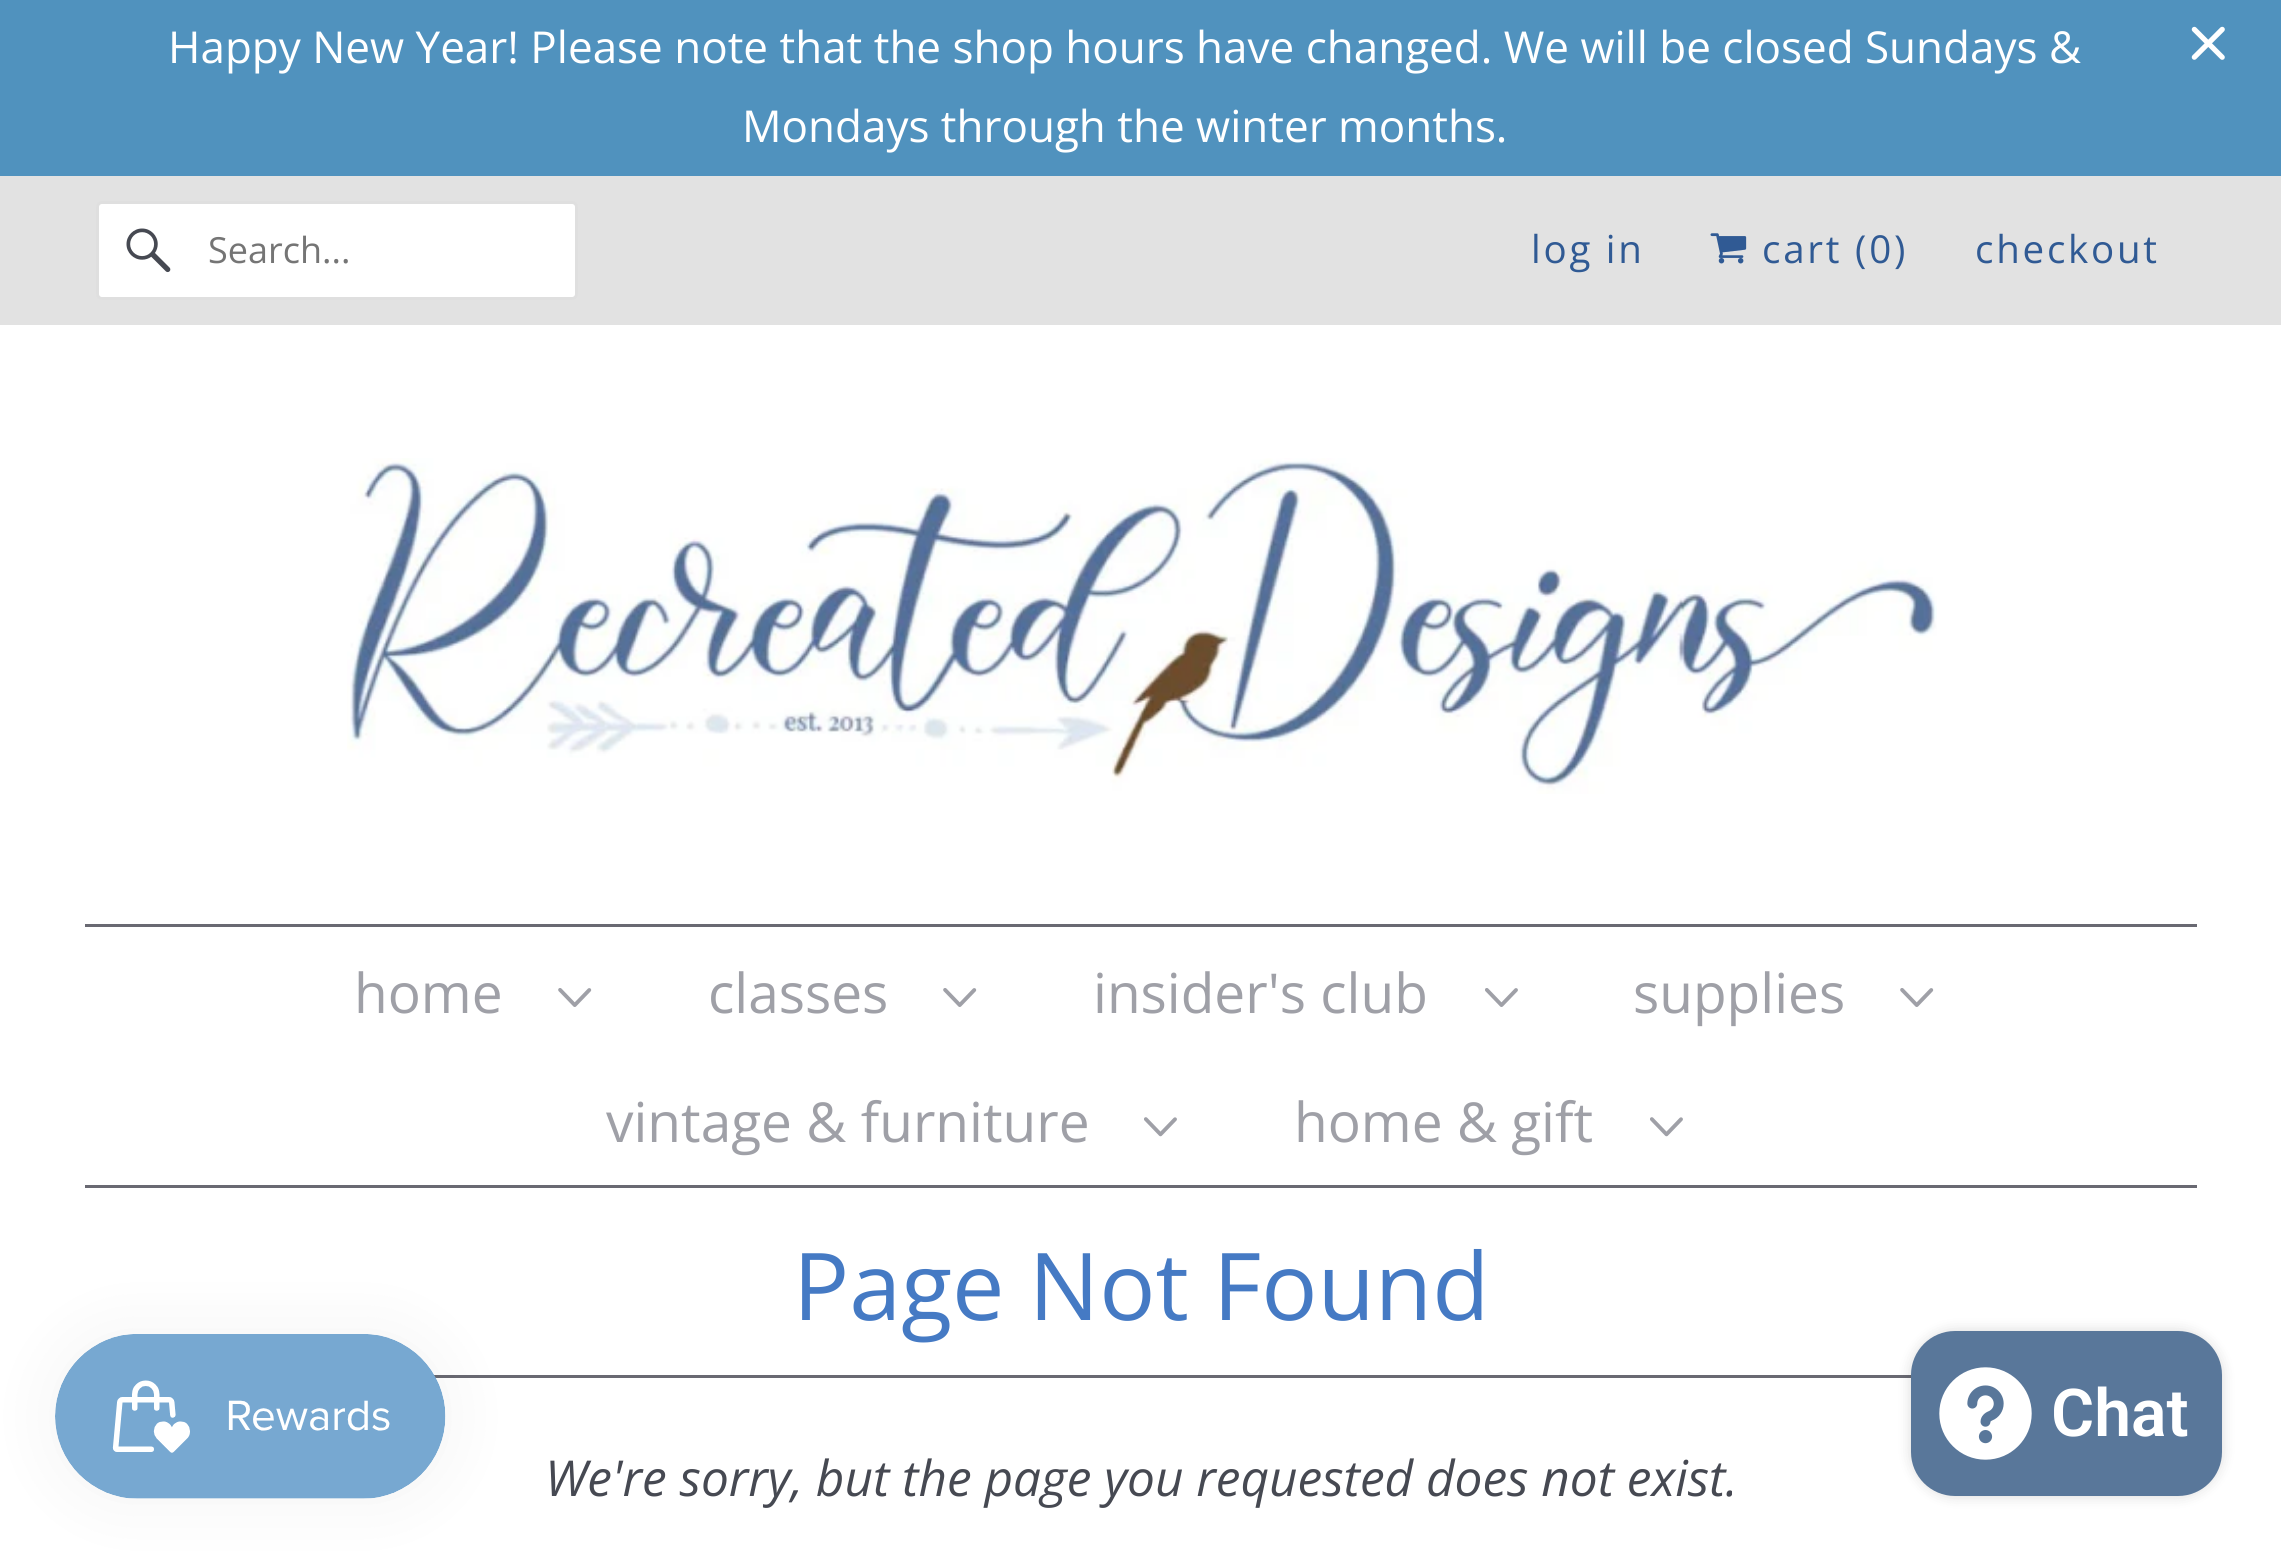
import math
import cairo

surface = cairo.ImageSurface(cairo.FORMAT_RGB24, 2281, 1553)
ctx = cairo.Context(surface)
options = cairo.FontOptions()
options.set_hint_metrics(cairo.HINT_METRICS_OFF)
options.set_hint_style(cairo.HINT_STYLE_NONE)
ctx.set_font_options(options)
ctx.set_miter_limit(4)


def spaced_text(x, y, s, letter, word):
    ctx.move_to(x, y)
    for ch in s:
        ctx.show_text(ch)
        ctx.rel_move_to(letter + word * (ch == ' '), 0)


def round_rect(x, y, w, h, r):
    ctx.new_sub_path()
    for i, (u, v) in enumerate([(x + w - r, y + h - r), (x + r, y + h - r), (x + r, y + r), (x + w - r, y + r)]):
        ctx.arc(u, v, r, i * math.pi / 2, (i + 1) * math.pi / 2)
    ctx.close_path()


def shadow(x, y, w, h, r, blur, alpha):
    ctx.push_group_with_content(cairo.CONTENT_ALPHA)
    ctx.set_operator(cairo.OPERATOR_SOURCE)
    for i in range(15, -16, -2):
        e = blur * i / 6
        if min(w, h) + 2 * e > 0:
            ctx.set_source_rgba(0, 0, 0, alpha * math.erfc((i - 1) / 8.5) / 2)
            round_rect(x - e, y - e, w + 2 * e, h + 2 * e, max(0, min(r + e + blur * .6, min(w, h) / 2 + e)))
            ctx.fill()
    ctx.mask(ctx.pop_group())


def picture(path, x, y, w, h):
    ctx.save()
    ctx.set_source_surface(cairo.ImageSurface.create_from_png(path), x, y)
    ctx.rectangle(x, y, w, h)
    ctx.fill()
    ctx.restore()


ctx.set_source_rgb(1, 1, 1)
ctx.paint()
ctx.set_source_rgb(0.314, 0.573, 0.745)
ctx.rectangle(0, 0, 2281, 176)
ctx.fill()
ctx.select_font_face("Open Sans")
ctx.set_font_size(44)
ctx.set_source_rgb(1, 1, 1)
ctx.move_to(168, 63)
ctx.show_text("Happy New Year! Please note that the shop hours have changed. We will be closed Sundays &")
ctx.move_to(742, 142)
ctx.show_text("Mondays through the winter months.")
picture("img1.png", 2191, 26, 34, 34)
ctx.set_source_rgb(0.886, 0.886, 0.886)
ctx.rectangle(0, 176, 2281, 149)
ctx.fill()
ctx.set_source_rgb(1, 1, 1)
round_rect(97.5, 202.5, 479, 96, 4.5)
ctx.fill_preserve()
ctx.set_source_rgb(0.875, 0.875, 0.875)
ctx.set_line_width(3)
ctx.stroke()
picture("img2.png", 126, 228, 45, 45)
ctx.set_font_size(36)
ctx.set_source_rgb(0.459, 0.459, 0.459)
ctx.move_to(208, 263)
ctx.show_text("Search...")
ctx.set_font_size(38.5)
ctx.set_source_rgb(0.188, 0.353, 0.58)
spaced_text(1531, 263, "log in", 2.75, 0)
picture("img3.png", 1710, 233, 37, 31)
spaced_text(1762, 263, "cart (0)", 2.75, 0)
spaced_text(1975, 263, "checkout", 2.75, 0)
picture("img4.png", 347, 458, 1590, 336)
ctx.set_source_rgb(0.412, 0.412, 0.447)
ctx.rectangle(85, 924, 2112, 3)
ctx.fill()
ctx.rectangle(85, 1185, 2112, 3)
ctx.fill()
ctx.set_font_size(55)
ctx.set_source_rgb(0.624, 0.627, 0.655)
ctx.move_to(354, 1013)
ctx.show_text("home")
picture("img5.png", 558, 988, 34, 19)
ctx.move_to(708, 1013)
ctx.show_text("classes")
picture("img5.png", 943, 988, 34, 19)
ctx.move_to(1093, 1013)
ctx.show_text("insider's club")
picture("img6.png", 1485, 988, 33, 19)
ctx.move_to(1633, 1013)
ctx.show_text("supplies")
picture("img5.png", 1900, 988, 34, 19)
ctx.move_to(606, 1142)
ctx.show_text("vintage & furniture")
picture("img7.png", 1144, 1117, 33, 20)
ctx.move_to(1294, 1142)
ctx.show_text("home & gift")
picture("img7.png", 1650, 1117, 33, 20)
ctx.set_source_rgb(0.412, 0.412, 0.447)
ctx.rectangle(434, 1375, 1477, 3)
ctx.fill()
ctx.set_source_rgb(0, 0, 0)
shadow(55, 1334, 391, 165, 82.5, 34.5, 0.05)
picture("img8.png", 55, 1334, 391, 165)
ctx.set_font_size(93.5)
ctx.set_source_rgb(0.271, 0.478, 0.769)
ctx.move_to(793, 1320)
ctx.show_text("Page Not Found")
ctx.select_font_face("Open Sans", cairo.FONT_SLANT_ITALIC)
ctx.set_font_size(49.5)
ctx.set_source_rgb(0.275, 0.286, 0.322)
ctx.move_to(545, 1496)
ctx.show_text("We're sorry, but the page you requested does not exist.")
ctx.set_source_rgb(0, 0, 0)
shadow(1911, 1331, 311, 165, 44, 7, 0.15)
ctx.set_source_rgb(0.349, 0.467, 0.604)
round_rect(1911, 1331, 311, 165, 44)
ctx.fill()
picture("img9.png", 1939, 1367, 93, 93)
ctx.select_font_face("Roboto SemiBold")
ctx.set_font_size(66)
ctx.set_source_rgb(1, 1, 1)
ctx.move_to(2051, 1436)
ctx.show_text("Chat")
surface.write_to_png("page.png")
